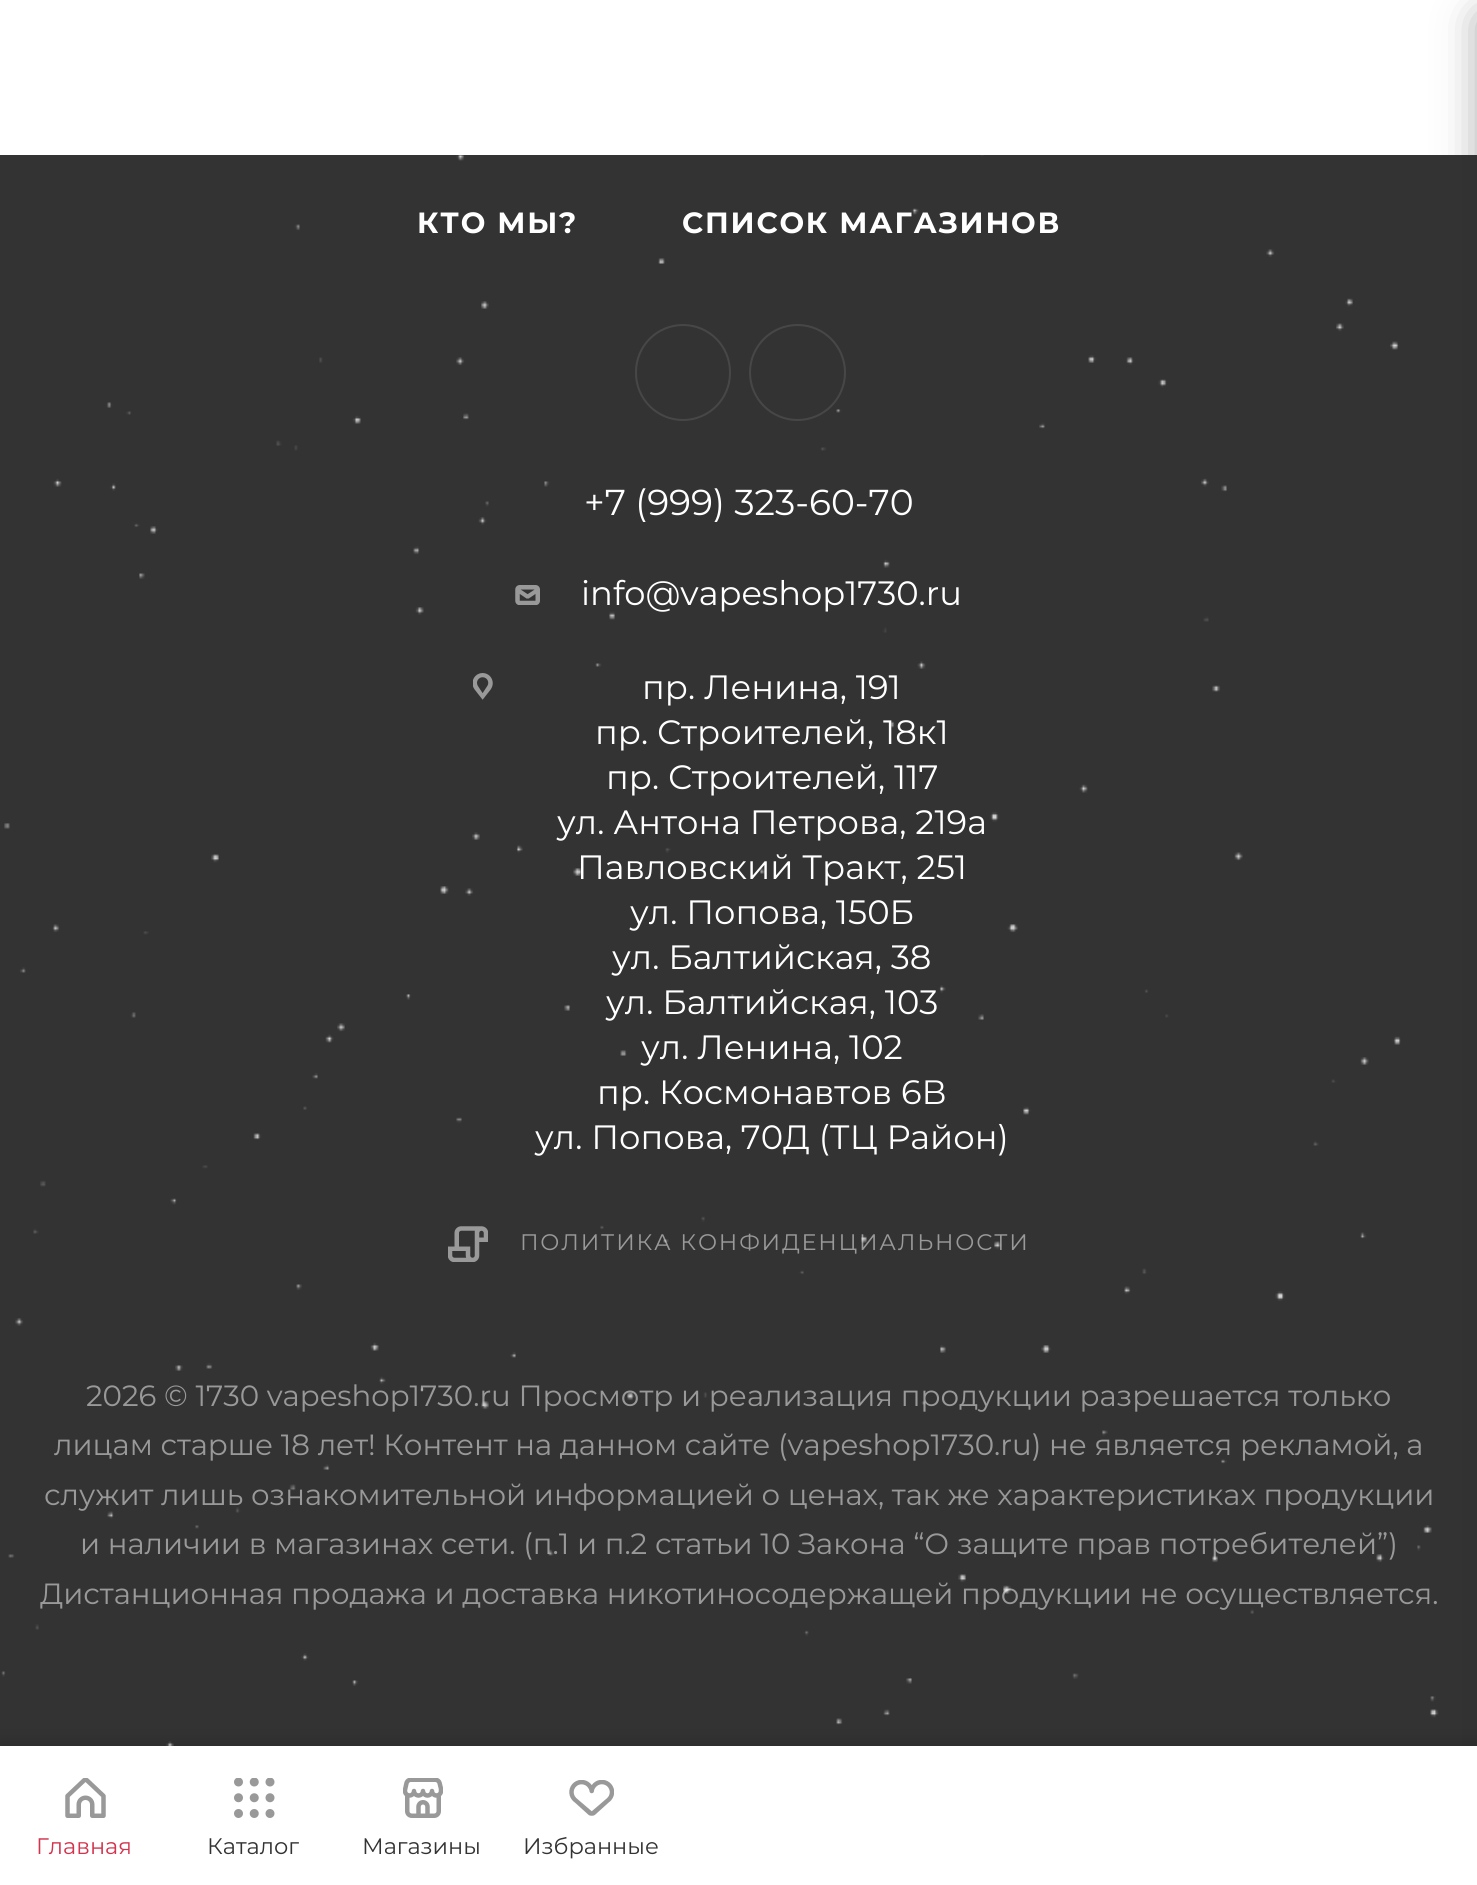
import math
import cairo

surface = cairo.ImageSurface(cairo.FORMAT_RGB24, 1477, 1885)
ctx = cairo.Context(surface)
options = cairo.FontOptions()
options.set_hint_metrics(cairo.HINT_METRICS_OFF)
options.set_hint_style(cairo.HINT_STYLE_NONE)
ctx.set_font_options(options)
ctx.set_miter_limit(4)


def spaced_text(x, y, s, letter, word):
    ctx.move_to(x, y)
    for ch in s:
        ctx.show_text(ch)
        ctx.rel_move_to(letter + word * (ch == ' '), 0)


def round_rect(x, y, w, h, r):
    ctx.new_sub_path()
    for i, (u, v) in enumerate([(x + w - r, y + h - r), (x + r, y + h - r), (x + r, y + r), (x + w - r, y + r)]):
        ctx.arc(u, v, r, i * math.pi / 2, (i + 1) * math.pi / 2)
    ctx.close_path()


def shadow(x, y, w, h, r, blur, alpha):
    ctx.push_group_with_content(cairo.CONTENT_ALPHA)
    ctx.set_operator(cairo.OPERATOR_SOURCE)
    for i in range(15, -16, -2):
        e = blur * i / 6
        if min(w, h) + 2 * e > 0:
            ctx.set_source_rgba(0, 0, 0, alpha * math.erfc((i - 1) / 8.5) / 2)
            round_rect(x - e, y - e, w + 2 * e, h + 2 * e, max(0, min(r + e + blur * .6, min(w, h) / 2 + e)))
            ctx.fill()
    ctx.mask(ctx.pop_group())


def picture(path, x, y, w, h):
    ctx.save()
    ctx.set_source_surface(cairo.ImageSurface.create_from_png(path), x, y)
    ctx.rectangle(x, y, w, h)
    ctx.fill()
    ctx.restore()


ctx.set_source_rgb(1, 1, 1)
ctx.paint()
ctx.set_source_rgb(0.2, 0.2, 0.2)
ctx.rectangle(0, 155, 1477, 1591)
ctx.fill()
ctx.set_source_rgb(0.173, 0.173, 0.173)
shadow(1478, 14, 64, 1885, 5, 20, 0.4)
ctx.select_font_face("Montserrat", cairo.FONT_SLANT_NORMAL, cairo.FONT_WEIGHT_BOLD)
ctx.set_font_size(29.25)
ctx.set_source_rgb(1, 1, 1)
spaced_text(417, 233, "КТО МЫ?", 1.8, 0)
spaced_text(682, 233, "СПИСОК МАГАЗИНОВ", 1.8, 0)
round_rect(636, 325, 94, 95, 47)
ctx.set_source_rgb(0.278, 0.278, 0.278)
ctx.stroke()
ctx.arc(797.5, 372.5, 47.5, 0, 2 * math.pi)
ctx.stroke()
ctx.select_font_face("Montserrat")
ctx.set_font_size(36)
ctx.set_source_rgb(1, 1, 1)
ctx.move_to(584, 515)
ctx.show_text("+7 (999) 323-60-70")
picture("img2.png", 515, 585, 25, 20)
ctx.set_font_size(33.75)
ctx.move_to(581, 605)
ctx.show_text("info@vapeshop1730.ru")
picture("img3.png", 473, 673, 20, 27)
ctx.move_to(642, 699)
ctx.show_text("пр. Ленина, 191")
ctx.move_to(595, 744)
ctx.show_text("пр. Строителей, 18к1")
ctx.move_to(606, 789)
ctx.show_text("пр. Строителей, 117")
ctx.move_to(557, 834)
ctx.show_text("ул. Антона Петрова, 219а")
ctx.move_to(577, 879)
ctx.show_text("Павловский Тракт, 251")
ctx.move_to(630, 924)
ctx.show_text("ул. Попова, 150Б")
ctx.move_to(612, 969)
ctx.show_text("ул. Балтийская, 38")
ctx.move_to(606, 1014)
ctx.show_text("ул. Балтийская, 103")
ctx.move_to(641, 1059)
ctx.show_text("ул. Ленина, 102")
ctx.move_to(597, 1104)
ctx.show_text("пр. Космонавтов 6В")
ctx.move_to(535, 1149)
ctx.show_text("ул. Попова, 70Д (ТЦ Район)")
picture("img4.png", 448, 1226, 40, 36)
ctx.set_font_size(22.5)
ctx.set_source_rgb(0.6, 0.6, 0.6)
spaced_text(520, 1250, "ПОЛИТИКА КОНФИДЕНЦИАЛЬНОСТИ", 1.8, 0)
ctx.set_font_size(29.25)
ctx.move_to(86, 1406)
ctx.show_text("2026 © 1730 vapeshop1730.ru Просмотр и реализация продукции разрешается только")
ctx.move_to(54, 1455)
ctx.show_text("лицам старше 18 лет! Контент на данном сайте (vapeshop1730.ru) не является рекламой, а")
ctx.move_to(44, 1505)
ctx.show_text("служит лишь ознакомительной информацией о ценах, так же характеристиках продукции")
ctx.move_to(80, 1554)
ctx.show_text("и наличии в магазинах сети. (п.1 и п.2 статьи 10 Закона “О защите прав потребителей”)")
ctx.move_to(40, 1604)
ctx.show_text("Дистанционная продажа и доставка никотиносодержащей продукции не осуществляется.")
ctx.set_source_rgb(0, 0, 0)
shadow(0, 1742, 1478, 139, 0, 9, 0.15)
ctx.set_source_rgb(1, 1, 1)
ctx.rectangle(0, 1746, 1477, 139)
ctx.fill()
picture("img5.png", 65, 1778, 41, 40)
ctx.set_font_size(22.5)
ctx.set_source_rgb(0.824, 0.2, 0.302)
ctx.move_to(36, 1854)
ctx.show_text("Главная")
picture("img6.png", 234, 1778, 41, 40)
ctx.set_source_rgb(0.2, 0.2, 0.2)
ctx.move_to(207, 1854)
ctx.show_text("Каталог")
picture("img7.png", 403, 1778, 40, 40)
ctx.move_to(362, 1854)
ctx.show_text("Магазины")
picture("img8.png", 569, 1780, 45, 36)
ctx.move_to(523, 1854)
ctx.show_text("Избранные")
picture("img1.png", 1, 155, 1438, 1686)
surface.write_to_png("page.png")
